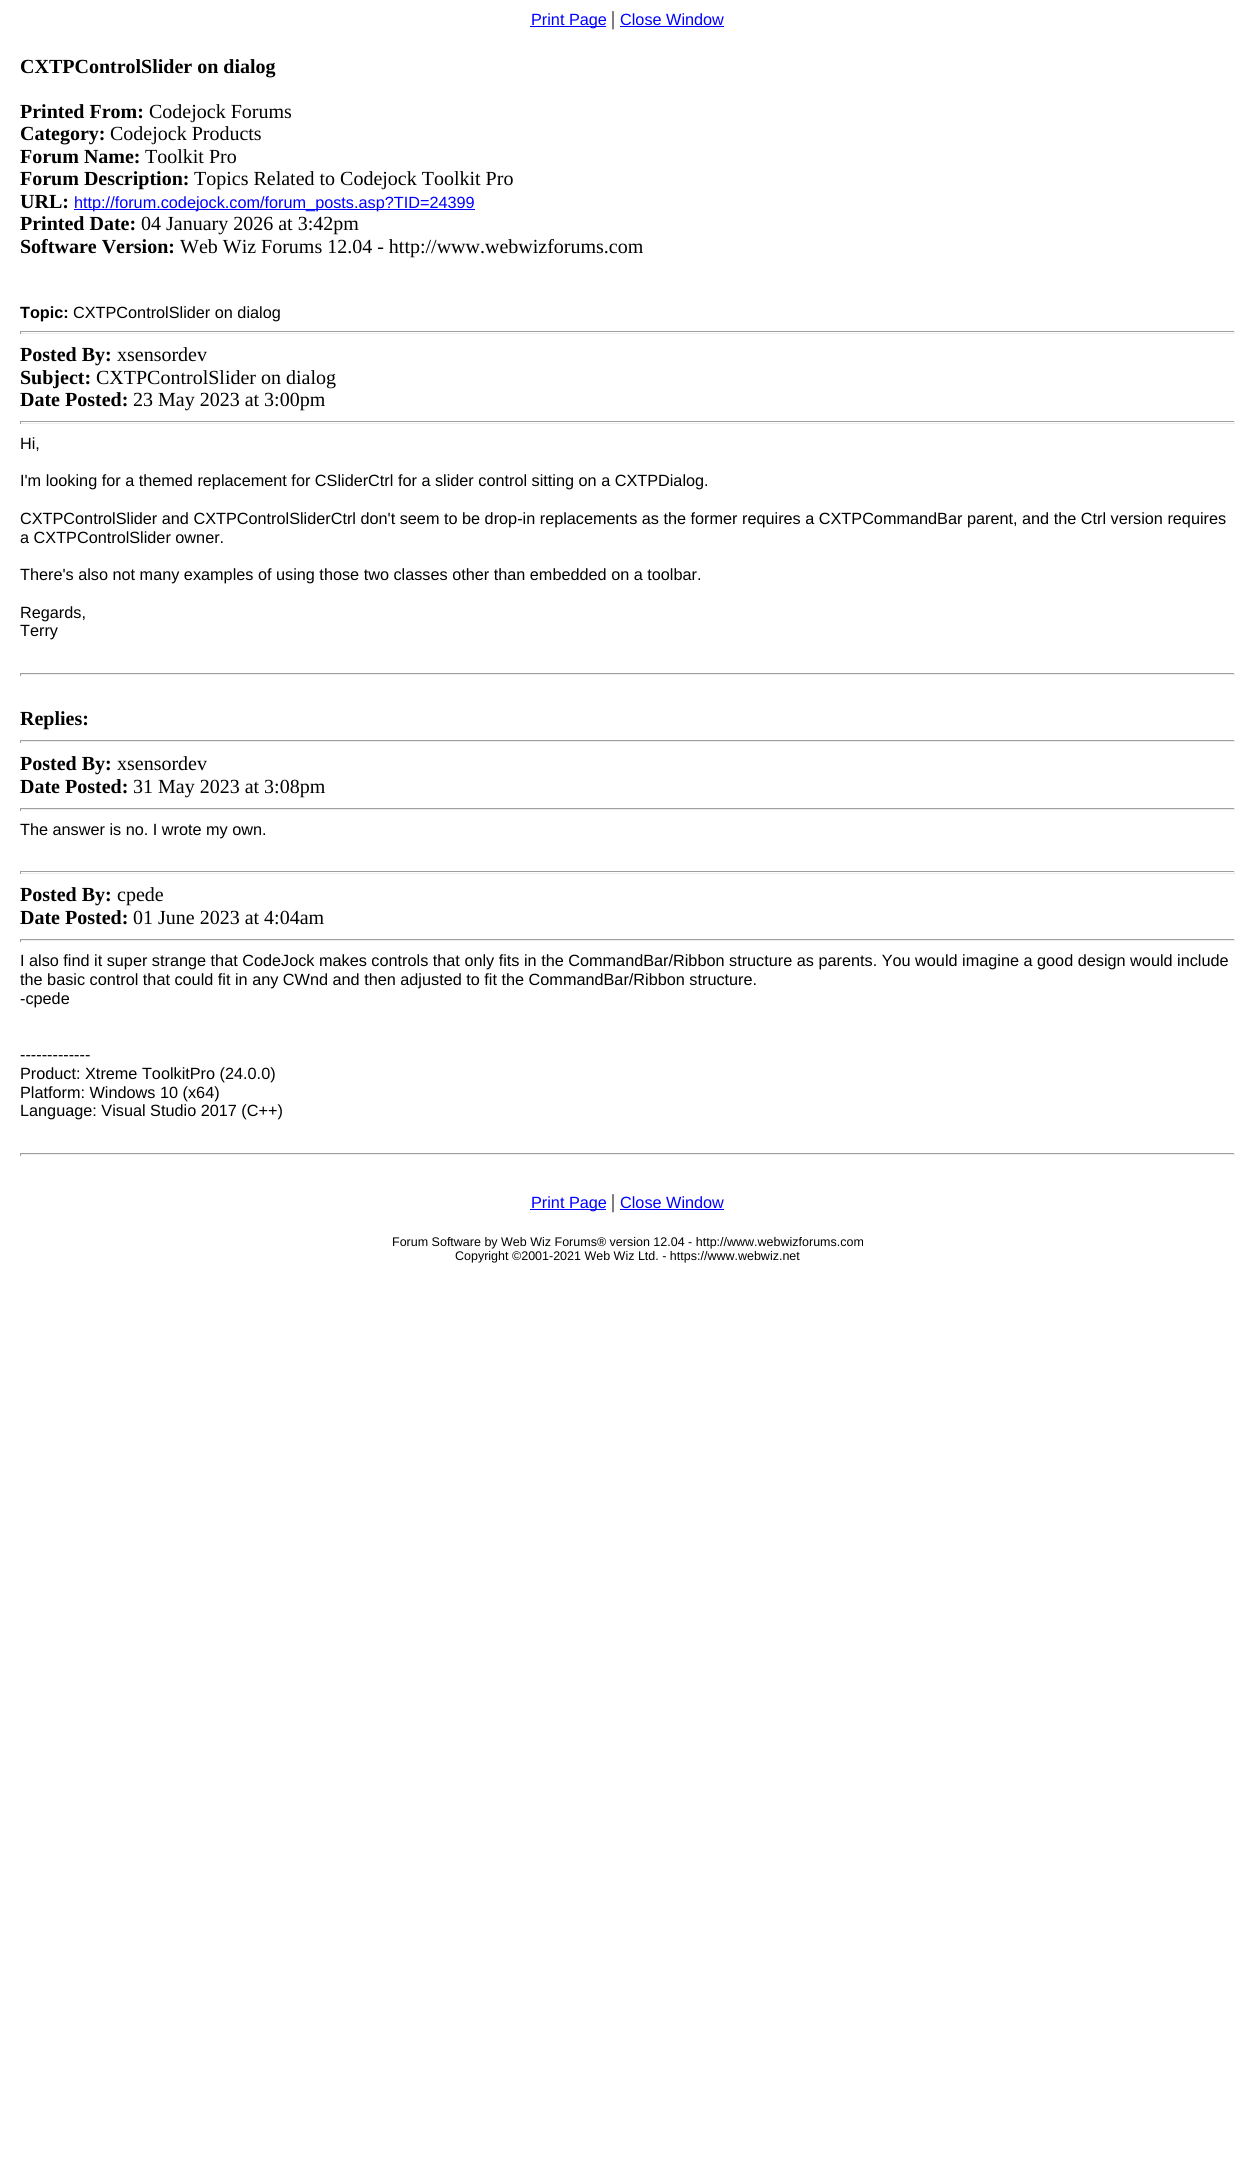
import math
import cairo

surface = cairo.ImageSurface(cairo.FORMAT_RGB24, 1255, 2183)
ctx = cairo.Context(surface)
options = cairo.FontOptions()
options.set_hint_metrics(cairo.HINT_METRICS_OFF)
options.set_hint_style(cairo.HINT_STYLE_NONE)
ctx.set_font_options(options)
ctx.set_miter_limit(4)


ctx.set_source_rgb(1, 1, 1)
ctx.paint()
ctx.set_source_rgb(0, 0, 1)
ctx.rectangle(530, 26, 76, 1)
ctx.fill()
ctx.select_font_face("Liberation Sans")
ctx.set_font_size(16.25)
ctx.move_to(531, 25)
ctx.show_text("Print Page")
ctx.select_font_face("Liberation Serif")
ctx.set_font_size(20)
ctx.set_source_rgb(0, 0, 0)
ctx.move_to(611, 25)
ctx.show_text("|")
ctx.select_font_face("Liberation Sans")
ctx.set_font_size(16.25)
ctx.set_source_rgb(0, 0, 1)
ctx.move_to(620, 25)
ctx.show_text("Close Window")
ctx.rectangle(620, 26, 104, 1)
ctx.fill()
ctx.select_font_face("Liberation Serif", cairo.FONT_SLANT_NORMAL, cairo.FONT_WEIGHT_BOLD)
ctx.set_font_size(20)
ctx.set_source_rgb(0, 0, 0)
ctx.move_to(20, 73)
ctx.show_text("CXTPControlSlider on dialog")
ctx.move_to(20, 118)
ctx.show_text("Printed From:")
ctx.select_font_face("Liberation Serif")
ctx.move_to(149, 118)
ctx.show_text("Codejock Forums")
ctx.select_font_face("Liberation Serif", cairo.FONT_SLANT_NORMAL, cairo.FONT_WEIGHT_BOLD)
ctx.move_to(20, 140)
ctx.show_text("Category:")
ctx.select_font_face("Liberation Serif")
ctx.move_to(110, 140)
ctx.show_text("Codejock Products")
ctx.select_font_face("Liberation Serif", cairo.FONT_SLANT_NORMAL, cairo.FONT_WEIGHT_BOLD)
ctx.move_to(20, 163)
ctx.show_text("Forum Name:")
ctx.select_font_face("Liberation Serif")
ctx.move_to(145, 163)
ctx.show_text("Toolkit Pro")
ctx.select_font_face("Liberation Serif", cairo.FONT_SLANT_NORMAL, cairo.FONT_WEIGHT_BOLD)
ctx.move_to(20, 185)
ctx.show_text("Forum Description:")
ctx.select_font_face("Liberation Serif")
ctx.move_to(194, 185)
ctx.show_text("Topics Related to Codejock Toolkit Pro")
ctx.select_font_face("Liberation Serif", cairo.FONT_SLANT_NORMAL, cairo.FONT_WEIGHT_BOLD)
ctx.move_to(20, 208)
ctx.show_text("URL:")
ctx.set_source_rgb(0, 0, 1)
ctx.rectangle(74, 209, 401, 1)
ctx.fill()
ctx.select_font_face("Liberation Sans")
ctx.set_font_size(16.25)
ctx.move_to(74, 208)
ctx.show_text("http://forum.codejock.com/forum_posts.asp?TID=24399")
ctx.select_font_face("Liberation Serif", cairo.FONT_SLANT_NORMAL, cairo.FONT_WEIGHT_BOLD)
ctx.set_font_size(20)
ctx.set_source_rgb(0, 0, 0)
ctx.move_to(20, 230)
ctx.show_text("Printed Date:")
ctx.select_font_face("Liberation Serif")
ctx.move_to(141, 230)
ctx.show_text("04 January 2026 at 3:42pm")
ctx.select_font_face("Liberation Serif", cairo.FONT_SLANT_NORMAL, cairo.FONT_WEIGHT_BOLD)
ctx.move_to(20, 253)
ctx.show_text("Software Version:")
ctx.select_font_face("Liberation Serif")
ctx.move_to(180, 253)
ctx.show_text("Web Wiz Forums 12.04 - http://www.webwizforums.com")
ctx.select_font_face("Liberation Sans", cairo.FONT_SLANT_NORMAL, cairo.FONT_WEIGHT_BOLD)
ctx.set_font_size(16.25)
ctx.move_to(20, 318)
ctx.show_text("Topic:")
ctx.select_font_face("Liberation Sans")
ctx.move_to(73, 318)
ctx.show_text("CXTPControlSlider on dialog")
ctx.set_source_rgb(0.624, 0.624, 0.624)
ctx.rectangle(20, 331, 1215, 1)
ctx.fill()
ctx.set_source_rgb(0.933, 0.933, 0.933)
ctx.rectangle(1234, 331, 1, 3)
ctx.fill()
ctx.rectangle(20, 333, 1215, 1)
ctx.fill()
ctx.set_source_rgb(0.624, 0.624, 0.624)
ctx.rectangle(20, 331, 1, 3)
ctx.fill()
ctx.select_font_face("Liberation Serif", cairo.FONT_SLANT_NORMAL, cairo.FONT_WEIGHT_BOLD)
ctx.set_font_size(20)
ctx.set_source_rgb(0, 0, 0)
ctx.move_to(20, 361)
ctx.show_text("Posted By:")
ctx.select_font_face("Liberation Serif")
ctx.move_to(117, 361)
ctx.show_text("xsensordev")
ctx.select_font_face("Liberation Serif", cairo.FONT_SLANT_NORMAL, cairo.FONT_WEIGHT_BOLD)
ctx.move_to(20, 384)
ctx.show_text("Subject:")
ctx.select_font_face("Liberation Serif")
ctx.move_to(96, 384)
ctx.show_text("CXTPControlSlider on dialog")
ctx.select_font_face("Liberation Serif", cairo.FONT_SLANT_NORMAL, cairo.FONT_WEIGHT_BOLD)
ctx.move_to(20, 406)
ctx.show_text("Date Posted:")
ctx.select_font_face("Liberation Serif")
ctx.move_to(133, 406)
ctx.show_text("23 May 2023 at 3:00pm")
ctx.set_source_rgb(0.624, 0.624, 0.624)
ctx.rectangle(20, 421, 1215, 1)
ctx.fill()
ctx.set_source_rgb(0.933, 0.933, 0.933)
ctx.rectangle(1234, 421, 1, 3)
ctx.fill()
ctx.rectangle(20, 423, 1215, 1)
ctx.fill()
ctx.set_source_rgb(0.624, 0.624, 0.624)
ctx.rectangle(20, 421, 1, 3)
ctx.fill()
ctx.select_font_face("Liberation Sans")
ctx.set_font_size(16.25)
ctx.set_source_rgb(0, 0, 0)
ctx.move_to(20, 449)
ctx.show_text("Hi,")
ctx.move_to(20, 486)
ctx.show_text("I'm looking for a themed replacement for CSliderCtrl for a slider control sitting on a CXTPDialog.")
ctx.move_to(20, 524)
ctx.show_text("CXTPControlSlider and CXTPControlSliderCtrl don't seem to be drop-in replacements as the former requires a CXTPCommandBar parent, and the Ctrl version requires")
ctx.move_to(20, 543)
ctx.show_text("a CXTPControlSlider owner.")
ctx.move_to(20, 580)
ctx.show_text("There's also not many examples of using those two classes other than embedded on a toolbar.")
ctx.move_to(20, 618)
ctx.show_text("Regards,")
ctx.move_to(20, 636)
ctx.show_text("Terry")
ctx.set_source_rgb(0.624, 0.624, 0.624)
ctx.rectangle(20, 673, 1215, 1)
ctx.fill()
ctx.set_source_rgb(0.933, 0.933, 0.933)
ctx.rectangle(1234, 673, 1, 3)
ctx.fill()
ctx.rectangle(20, 674, 1215, 1)
ctx.fill()
ctx.set_source_rgb(0.624, 0.624, 0.624)
ctx.rectangle(20, 673, 1, 3)
ctx.fill()
ctx.select_font_face("Liberation Serif", cairo.FONT_SLANT_NORMAL, cairo.FONT_WEIGHT_BOLD)
ctx.set_font_size(20)
ctx.set_source_rgb(0, 0, 0)
ctx.move_to(20, 725)
ctx.show_text("Replies:")
ctx.set_source_rgb(0.624, 0.624, 0.624)
ctx.rectangle(20, 740, 1215, 1)
ctx.fill()
ctx.set_source_rgb(0.933, 0.933, 0.933)
ctx.rectangle(1234, 740, 1, 3)
ctx.fill()
ctx.rectangle(20, 741, 1215, 1)
ctx.fill()
ctx.set_source_rgb(0.624, 0.624, 0.624)
ctx.rectangle(20, 740, 1, 3)
ctx.fill()
ctx.set_source_rgb(0, 0, 0)
ctx.move_to(20, 770)
ctx.show_text("Posted By:")
ctx.select_font_face("Liberation Serif")
ctx.move_to(117, 770)
ctx.show_text("xsensordev")
ctx.select_font_face("Liberation Serif", cairo.FONT_SLANT_NORMAL, cairo.FONT_WEIGHT_BOLD)
ctx.move_to(20, 793)
ctx.show_text("Date Posted:")
ctx.select_font_face("Liberation Serif")
ctx.move_to(133, 793)
ctx.show_text("31 May 2023 at 3:08pm")
ctx.set_source_rgb(0.624, 0.624, 0.624)
ctx.rectangle(20, 808, 1215, 1)
ctx.fill()
ctx.set_source_rgb(0.933, 0.933, 0.933)
ctx.rectangle(1234, 808, 1, 3)
ctx.fill()
ctx.rectangle(20, 809, 1215, 1)
ctx.fill()
ctx.set_source_rgb(0.624, 0.624, 0.624)
ctx.rectangle(20, 808, 1, 3)
ctx.fill()
ctx.select_font_face("Liberation Sans")
ctx.set_font_size(16.25)
ctx.set_source_rgb(0, 0, 0)
ctx.move_to(20, 835)
ctx.show_text("The answer is no. I wrote my own.")
ctx.set_source_rgb(0.624, 0.624, 0.624)
ctx.rectangle(20, 871, 1215, 1)
ctx.fill()
ctx.set_source_rgb(0.933, 0.933, 0.933)
ctx.rectangle(1234, 871, 1, 3)
ctx.fill()
ctx.rectangle(20, 873, 1215, 1)
ctx.fill()
ctx.set_source_rgb(0.624, 0.624, 0.624)
ctx.rectangle(20, 871, 1, 3)
ctx.fill()
ctx.select_font_face("Liberation Serif", cairo.FONT_SLANT_NORMAL, cairo.FONT_WEIGHT_BOLD)
ctx.set_font_size(20)
ctx.set_source_rgb(0, 0, 0)
ctx.move_to(20, 901)
ctx.show_text("Posted By:")
ctx.select_font_face("Liberation Serif")
ctx.move_to(117, 901)
ctx.show_text("cpede")
ctx.select_font_face("Liberation Serif", cairo.FONT_SLANT_NORMAL, cairo.FONT_WEIGHT_BOLD)
ctx.move_to(20, 924)
ctx.show_text("Date Posted:")
ctx.select_font_face("Liberation Serif")
ctx.move_to(133, 924)
ctx.show_text("01 June 2023 at 4:04am")
ctx.set_source_rgb(0.624, 0.624, 0.624)
ctx.rectangle(20, 939, 1215, 1)
ctx.fill()
ctx.set_source_rgb(0.933, 0.933, 0.933)
ctx.rectangle(1234, 939, 1, 3)
ctx.fill()
ctx.rectangle(20, 940, 1215, 1)
ctx.fill()
ctx.set_source_rgb(0.624, 0.624, 0.624)
ctx.rectangle(20, 939, 1, 3)
ctx.fill()
ctx.select_font_face("Liberation Sans")
ctx.set_font_size(16.25)
ctx.set_source_rgb(0, 0, 0)
ctx.move_to(20, 966)
ctx.show_text("I also find it super strange that CodeJock makes controls that only fits in the CommandBar/Ribbon structure as parents. You would imagine a good design would include")
ctx.move_to(20, 985)
ctx.show_text("the basic control that could fit in any CWnd and then adjusted to fit the CommandBar/Ribbon structure.")
ctx.move_to(20, 1004)
ctx.show_text("-cpede")
ctx.move_to(20, 1060)
ctx.show_text("-------------")
ctx.move_to(20, 1079)
ctx.show_text("Product: Xtreme ToolkitPro (24.0.0)")
ctx.move_to(20, 1098)
ctx.show_text("Platform: Windows 10 (x64)")
ctx.move_to(20, 1116)
ctx.show_text("Language: Visual Studio 2017 (C++)")
ctx.set_source_rgb(0.624, 0.624, 0.624)
ctx.rectangle(20, 1153, 1215, 1)
ctx.fill()
ctx.set_source_rgb(0.933, 0.933, 0.933)
ctx.rectangle(1234, 1153, 1, 3)
ctx.fill()
ctx.rectangle(20, 1154, 1215, 1)
ctx.fill()
ctx.set_source_rgb(0.624, 0.624, 0.624)
ctx.rectangle(20, 1153, 1, 3)
ctx.fill()
ctx.set_source_rgb(0, 0, 1)
ctx.rectangle(530, 1209, 76, 1)
ctx.fill()
ctx.move_to(531, 1208)
ctx.show_text("Print Page")
ctx.select_font_face("Liberation Serif")
ctx.set_font_size(20)
ctx.set_source_rgb(0, 0, 0)
ctx.move_to(611, 1208)
ctx.show_text("|")
ctx.select_font_face("Liberation Sans")
ctx.set_font_size(16.25)
ctx.set_source_rgb(0, 0, 1)
ctx.move_to(620, 1208)
ctx.show_text("Close Window")
ctx.rectangle(620, 1209, 104, 1)
ctx.fill()
ctx.set_font_size(12.5)
ctx.set_source_rgb(0, 0, 0)
ctx.move_to(392, 1246)
ctx.show_text("Forum Software by Web Wiz Forums® version 12.04 - http://www.webwizforums.com")
ctx.move_to(455, 1260)
ctx.show_text("Copyright ©2001-2021 Web Wiz Ltd. - https://www.webwiz.net")
surface.write_to_png("page.png")
